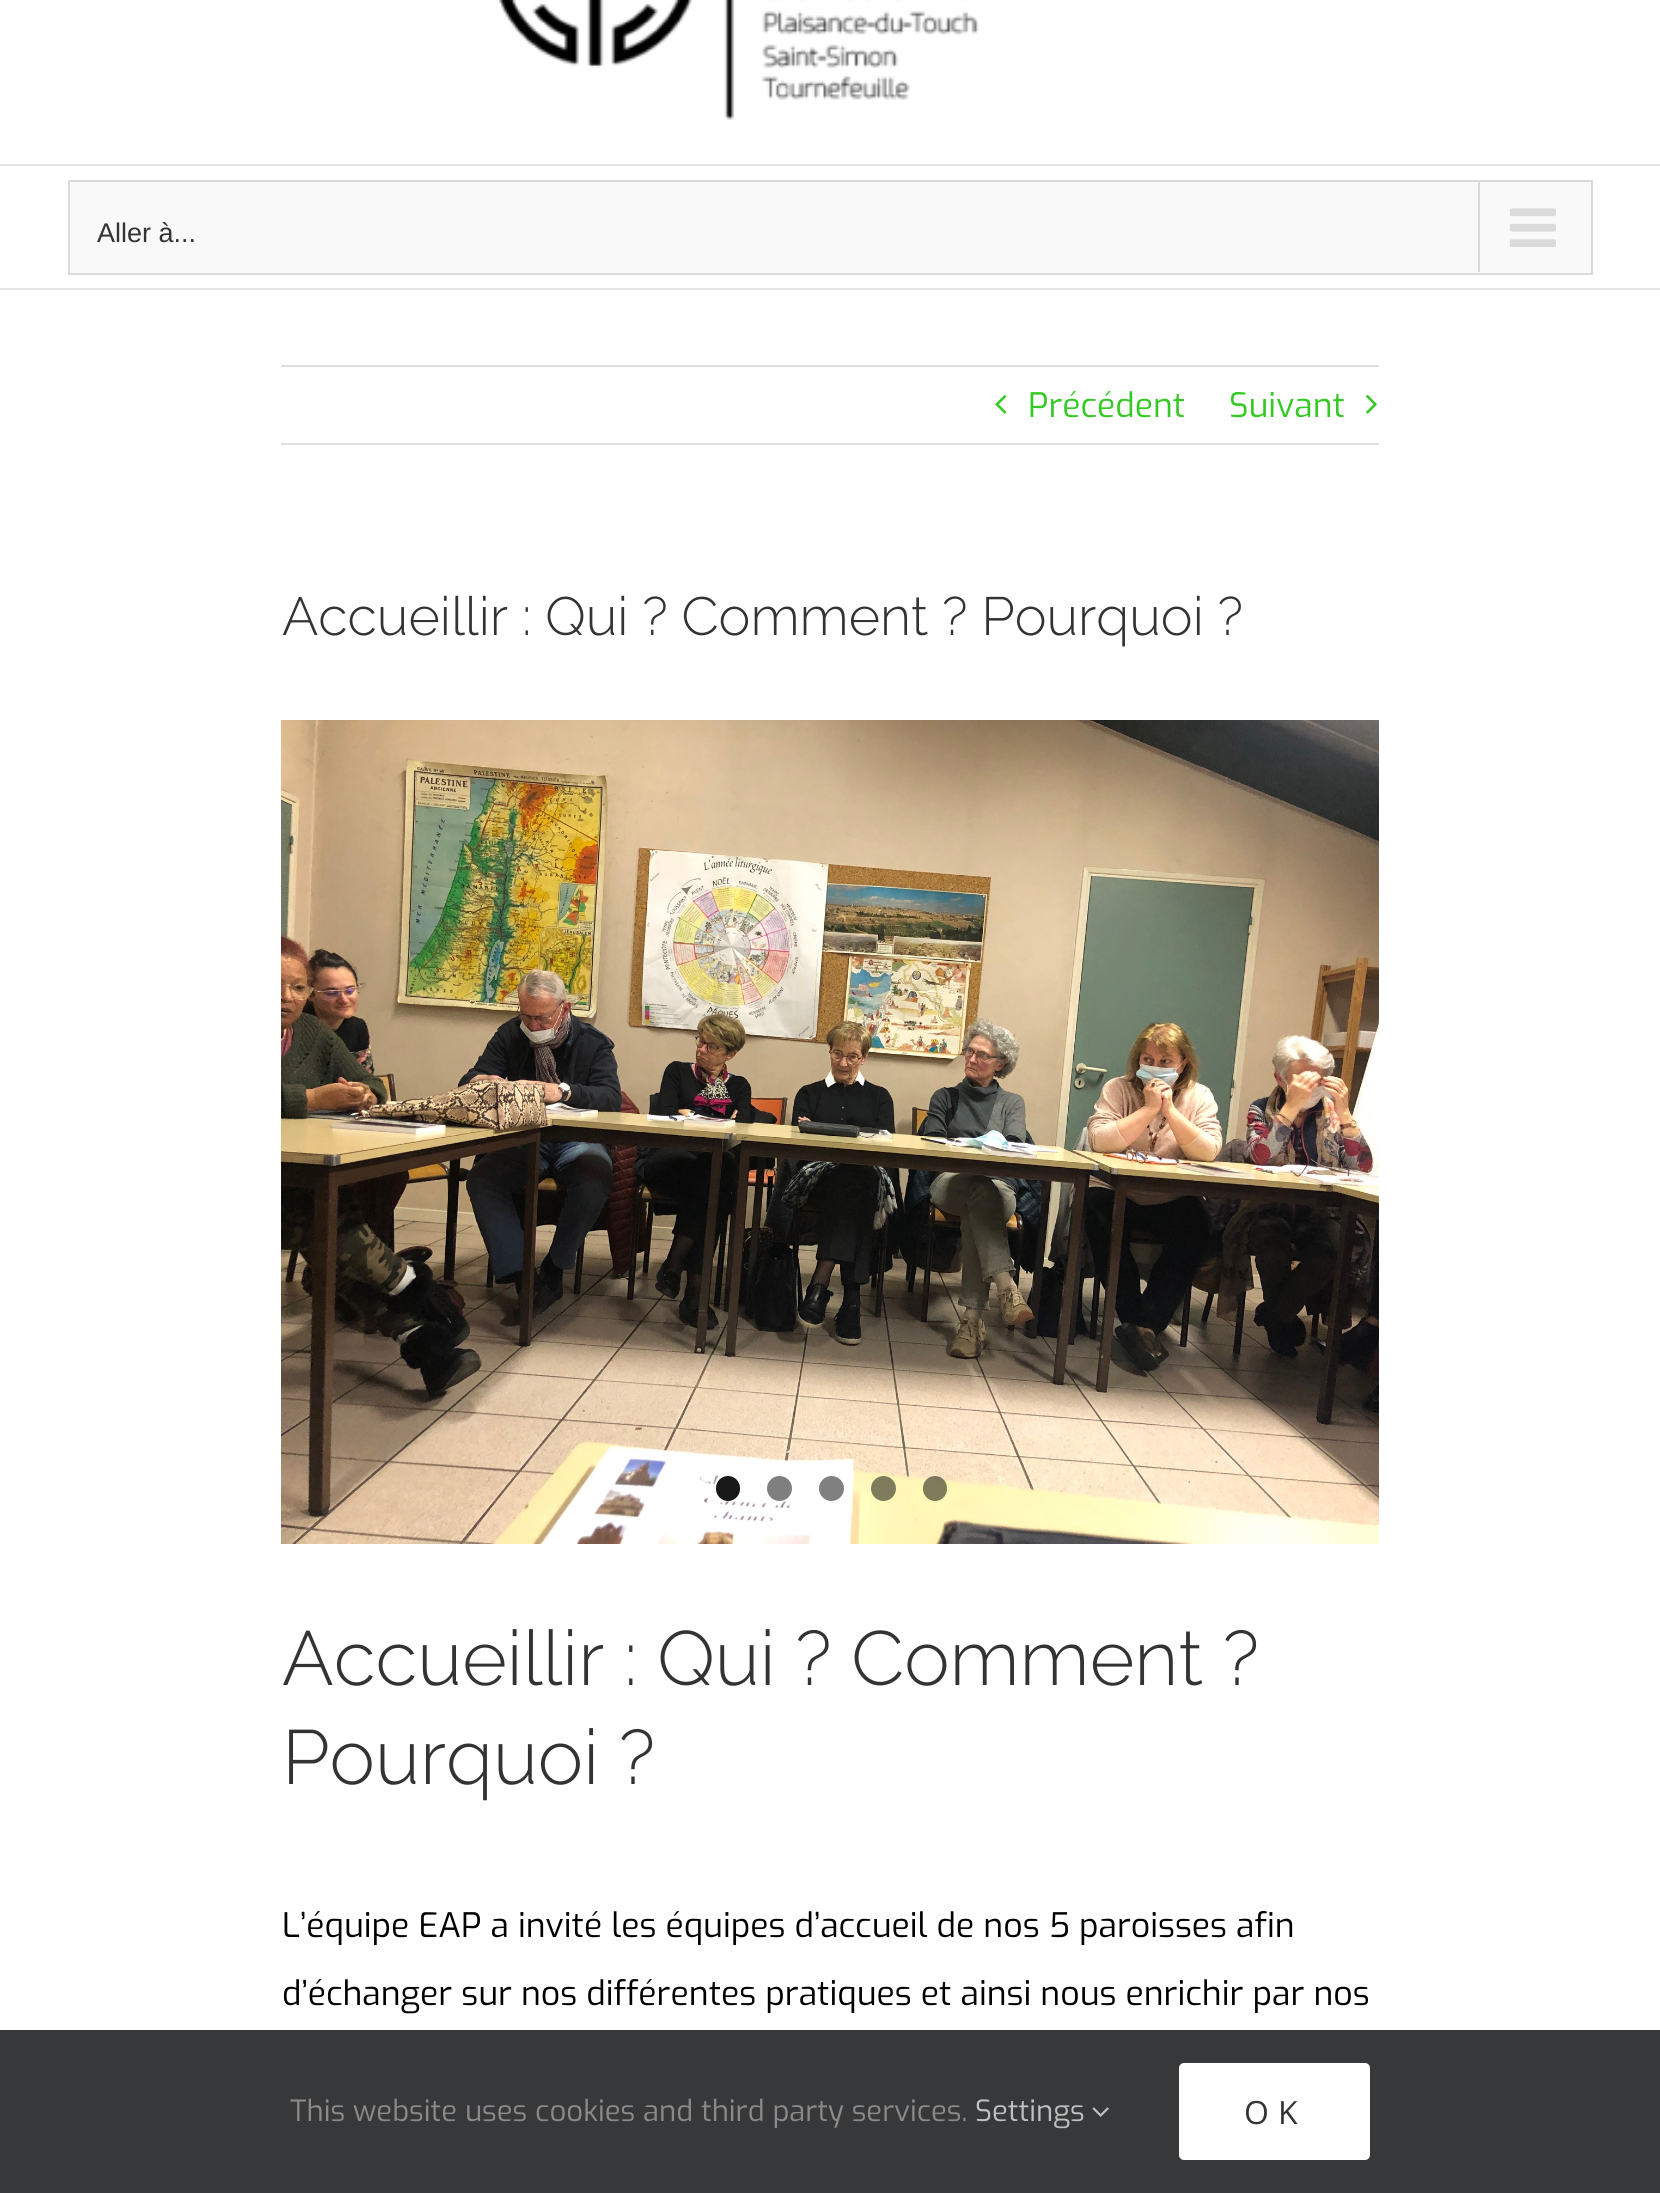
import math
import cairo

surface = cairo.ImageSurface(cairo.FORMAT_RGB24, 1660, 2193)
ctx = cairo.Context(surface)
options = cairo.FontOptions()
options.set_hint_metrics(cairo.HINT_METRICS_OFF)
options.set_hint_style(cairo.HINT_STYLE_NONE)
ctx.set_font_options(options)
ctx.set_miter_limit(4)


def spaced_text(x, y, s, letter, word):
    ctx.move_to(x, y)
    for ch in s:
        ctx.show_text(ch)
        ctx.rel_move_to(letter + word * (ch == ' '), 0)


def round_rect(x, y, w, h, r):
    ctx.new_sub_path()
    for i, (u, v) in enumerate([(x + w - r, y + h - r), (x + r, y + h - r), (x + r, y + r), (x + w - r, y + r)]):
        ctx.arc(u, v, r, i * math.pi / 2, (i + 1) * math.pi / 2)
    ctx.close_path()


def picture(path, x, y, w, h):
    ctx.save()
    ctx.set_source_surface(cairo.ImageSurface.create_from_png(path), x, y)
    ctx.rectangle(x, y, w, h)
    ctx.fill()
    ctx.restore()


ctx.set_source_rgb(1, 1, 1)
ctx.paint()
ctx.set_source_rgb(0.898, 0.898, 0.898)
ctx.rectangle(0, 164, 1660, 2)
ctx.fill()
picture("img1.png", 499, 0, 480, 120)
ctx.rectangle(0, 288, 1660, 2)
ctx.fill()
ctx.set_source_rgb(0.976, 0.976, 0.976)
ctx.rectangle(69, 181, 1523, 93)
ctx.fill_preserve()
ctx.set_source_rgb(0.855, 0.855, 0.855)
ctx.stroke()
ctx.select_font_face("Liberation Sans")
ctx.set_font_size(27)
ctx.set_source_rgb(0.2, 0.2, 0.2)
ctx.move_to(97, 242)
ctx.show_text("Aller à...")
ctx.set_source_rgb(0.855, 0.855, 0.855)
ctx.rectangle(1478, 182, 2, 90)
ctx.fill()
picture("img2.png", 1509, 208, 47, 39)
ctx.set_source_rgb(0.878, 0.871, 0.871)
ctx.rectangle(281, 365, 1098, 2)
ctx.fill()
ctx.rectangle(281, 443, 1098, 2)
ctx.fill()
picture("img3.png", 995, 395, 12, 19)
ctx.select_font_face("Exo")
ctx.set_font_size(33.75)
ctx.set_source_rgb(0.204, 0.788, 0.141)
ctx.move_to(1028, 417)
ctx.show_text("Précédent")
ctx.move_to(1229, 417)
ctx.show_text("Suivant")
picture("img4.png", 1366, 395, 11, 19)
ctx.select_font_face("Raleway Light")
ctx.set_font_size(53.75)
ctx.set_source_rgb(0.2, 0.2, 0.2)
ctx.move_to(282, 635)
ctx.show_text("Accueillir : Qui ? Comment ? Pourquoi ?")
picture("img5.png", 281, 720, 1098, 824)
ctx.set_source_rgba(0, 0, 0, 0.9)
round_rect(716, 1476, 24, 25, 12)
ctx.fill()
ctx.set_source_rgba(0, 0, 0, 0.5)
ctx.arc(779.5, 1488.5, 12.5, 0, 2 * math.pi)
ctx.fill()
ctx.set_source_rgb(0.502, 0.502, 0.502)
ctx.arc(831.5, 1488.5, 12.5, 0, 2 * math.pi)
ctx.fill()
ctx.set_source_rgba(0, 0, 0, 0.5)
ctx.arc(883.5, 1488.5, 12.5, 0, 2 * math.pi)
ctx.fill()
round_rect(923, 1476, 24, 25, 12)
ctx.fill()
ctx.set_font_size(76.6)
ctx.set_source_rgb(0.2, 0.2, 0.2)
ctx.move_to(282, 1685)
ctx.show_text("Accueillir : Qui ? Comment ?")
ctx.move_to(282, 1784)
ctx.show_text("Pourquoi ?")
ctx.select_font_face("Exo")
ctx.set_font_size(33.75)
ctx.set_source_rgb(0, 0, 0)
ctx.move_to(282, 1937)
ctx.show_text("L’équipe EAP a invité les équipes d’accueil de nos 5 paroisses afin")
ctx.move_to(282, 2005)
ctx.show_text("d’échanger sur nos différentes pratiques et ainsi nous enrichir par nos")
ctx.set_source_rgb(0.212, 0.22, 0.224)
ctx.rectangle(0, 2030, 1660, 163)
ctx.fill()
ctx.set_font_size(29.25)
ctx.set_source_rgb(0.549, 0.537, 0.537)
ctx.move_to(290, 2121)
ctx.show_text("This website uses cookies and third party services.")
ctx.set_source_rgb(0.749, 0.749, 0.749)
ctx.move_to(975, 2121)
ctx.show_text("Settings")
picture("img6.png", 1092, 2107, 17, 10)
ctx.set_source_rgb(1, 1, 1)
round_rect(1179, 2063, 191, 97, 5)
ctx.fill()
ctx.select_font_face("Open Sans")
ctx.set_font_size(32)
ctx.set_source_rgb(0.2, 0.2, 0.2)
spaced_text(1244, 2124, "OK", 9, 0)
surface.write_to_png("page.png")
